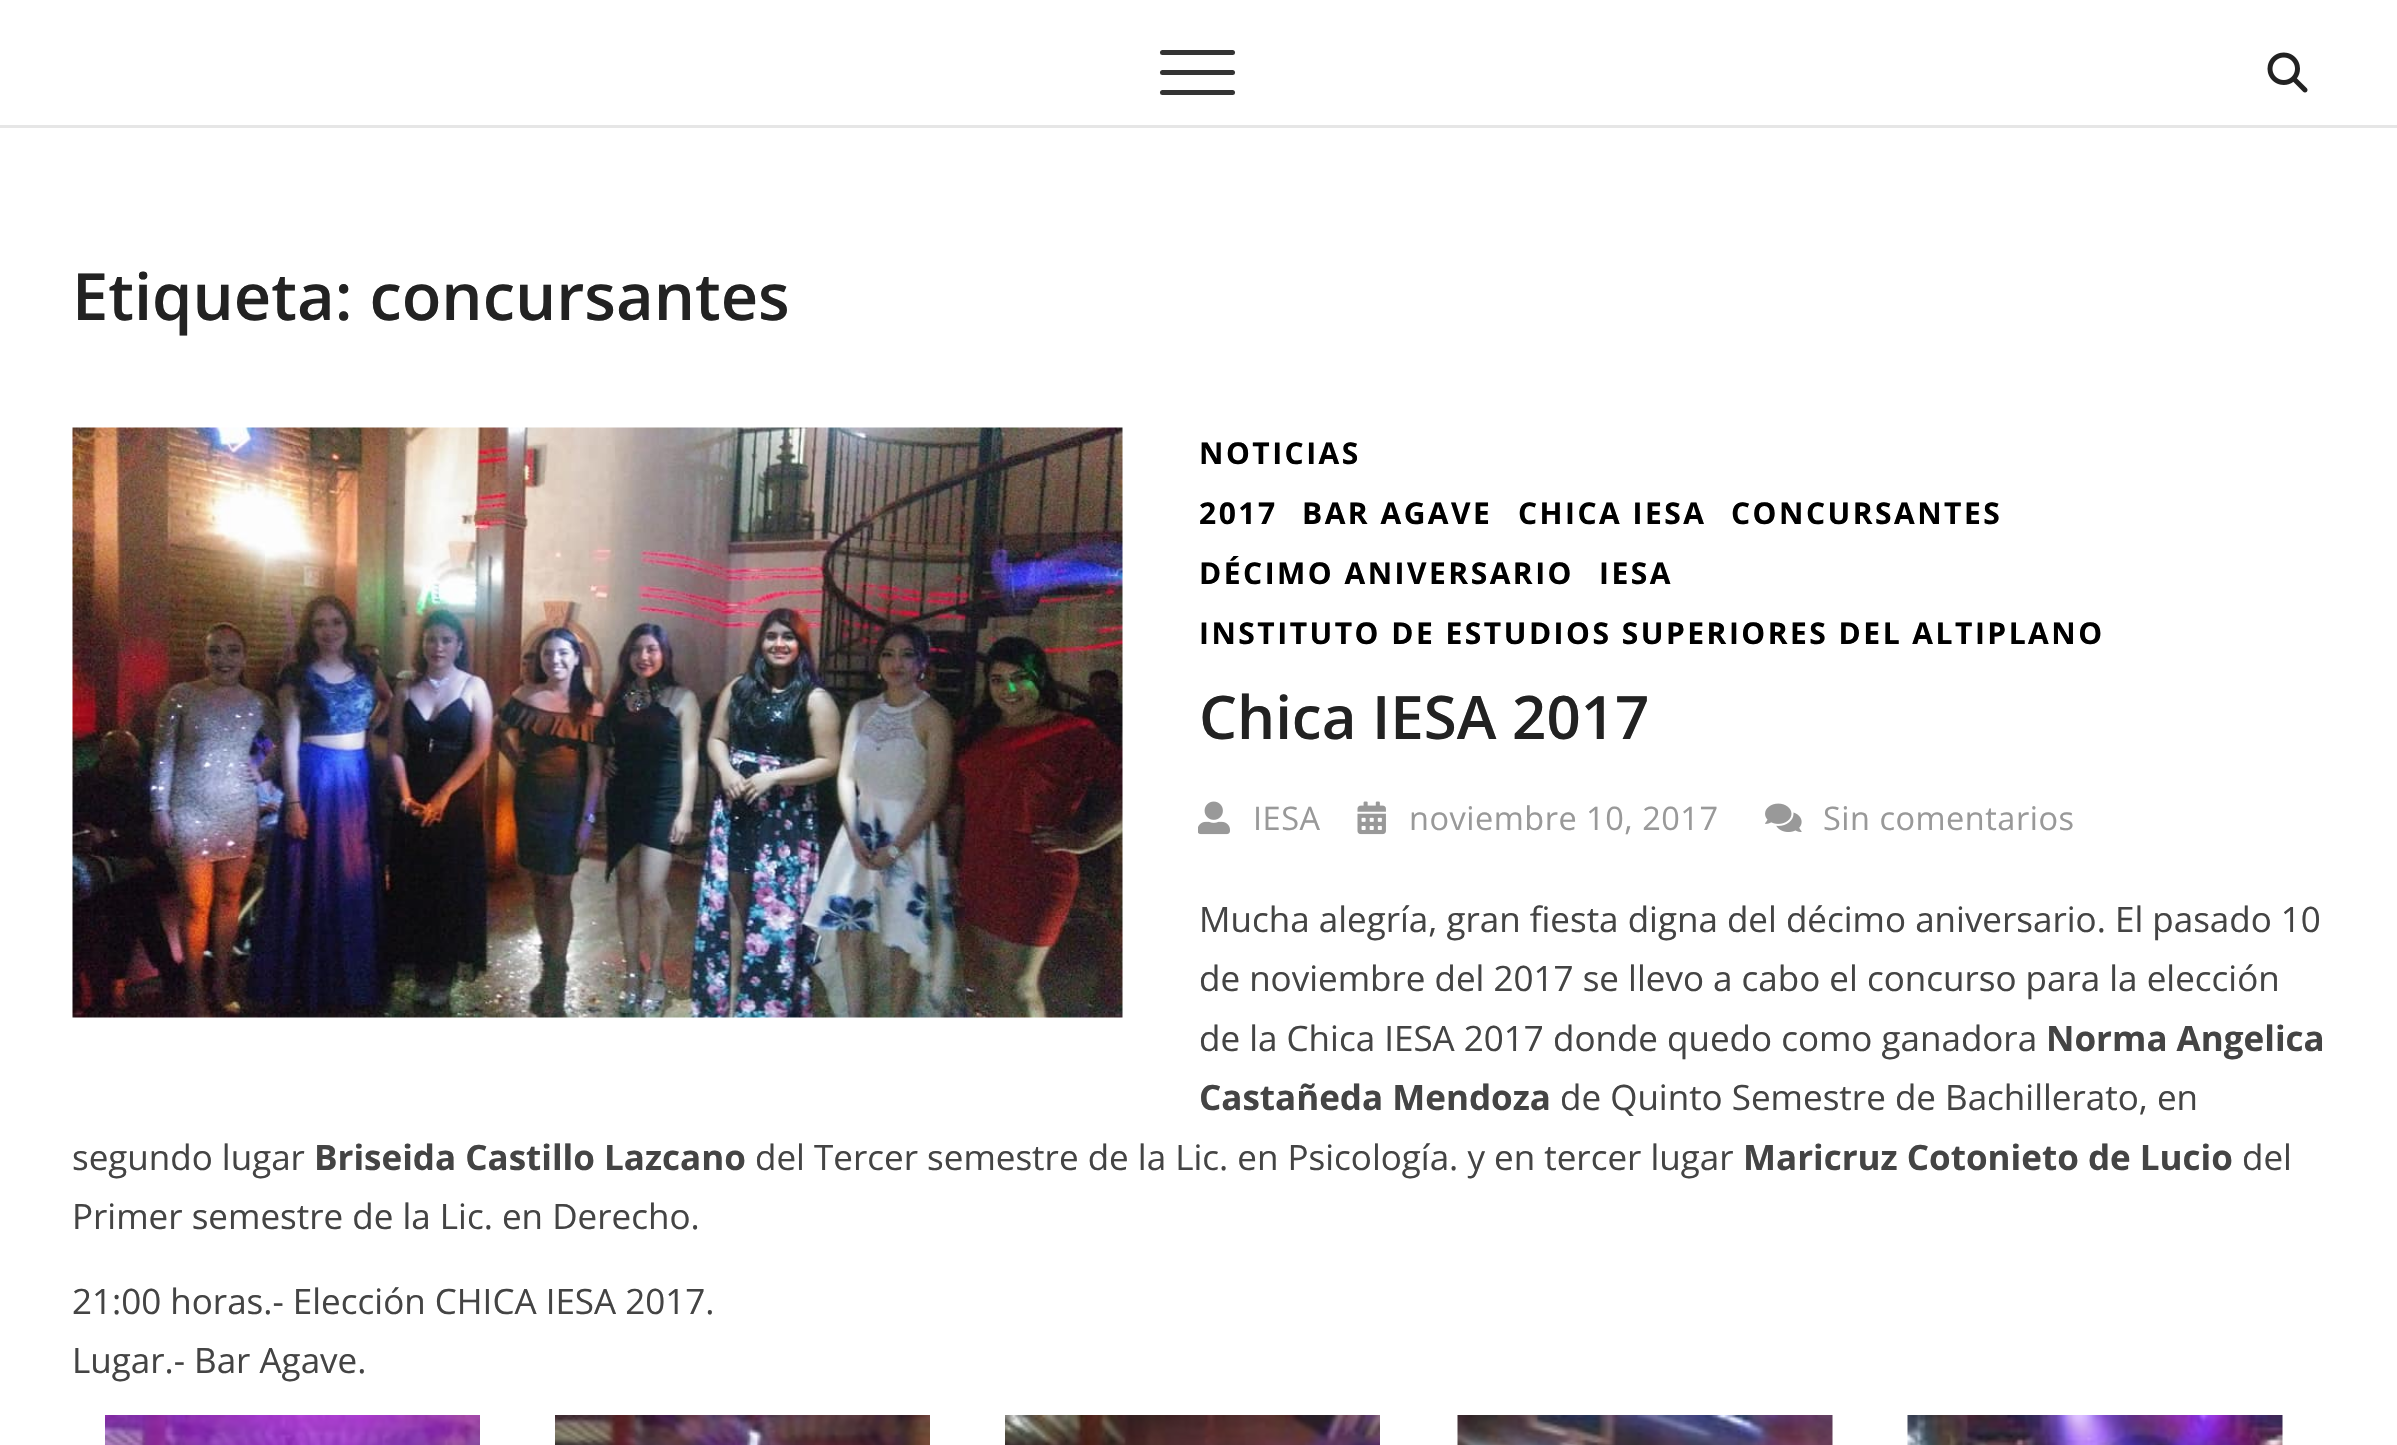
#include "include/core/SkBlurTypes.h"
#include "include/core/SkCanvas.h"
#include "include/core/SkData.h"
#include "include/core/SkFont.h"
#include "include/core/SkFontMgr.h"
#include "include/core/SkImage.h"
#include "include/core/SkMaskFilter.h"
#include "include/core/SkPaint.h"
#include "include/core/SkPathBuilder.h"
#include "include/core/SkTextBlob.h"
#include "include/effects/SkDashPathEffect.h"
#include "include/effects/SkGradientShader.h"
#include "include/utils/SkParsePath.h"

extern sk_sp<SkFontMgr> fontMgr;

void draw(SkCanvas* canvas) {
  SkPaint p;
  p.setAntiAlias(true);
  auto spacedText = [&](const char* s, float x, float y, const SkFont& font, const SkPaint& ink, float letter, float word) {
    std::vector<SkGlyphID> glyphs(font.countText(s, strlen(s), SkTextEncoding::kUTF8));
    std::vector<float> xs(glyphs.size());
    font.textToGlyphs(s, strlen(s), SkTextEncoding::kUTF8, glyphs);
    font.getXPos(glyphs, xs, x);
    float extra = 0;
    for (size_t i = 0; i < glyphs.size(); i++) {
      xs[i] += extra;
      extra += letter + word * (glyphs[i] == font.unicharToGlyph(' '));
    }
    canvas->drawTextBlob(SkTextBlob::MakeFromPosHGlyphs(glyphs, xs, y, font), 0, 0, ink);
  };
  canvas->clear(SK_ColorWHITE);
  p.setColor(SkColorSetRGB(230, 230, 230));
  canvas->drawRect(SkRect::MakeLTRB(0, 125, 2397, 128), p);
  p.setColor(SkColorSetRGB(51, 51, 51));
  canvas->drawRoundRect(SkRect::MakeLTRB(1160, 70, 1235, 75), 2.5f, 2.5f, p);
  canvas->drawRoundRect(SkRect::MakeLTRB(1160, 50, 1235, 55), 2.5f, 2.5f, p);
  canvas->drawRoundRect(SkRect::MakeLTRB(1160, 90, 1235, 95), 2.5f, 2.5f, p);
  canvas->drawImageRect(SkImages::DeferredFromEncodedData(SkData::MakeFromFileName("images/1.png")), SkRect::MakeLTRB(2267, 52, 2308, 93), SkSamplingOptions());
  canvas->drawImageRect(SkImages::DeferredFromEncodedData(SkData::MakeFromFileName("images/2.png")), SkRect::MakeLTRB(72, 427, 1123, 1018), SkSamplingOptions());
  canvas->drawImageRect(SkImages::DeferredFromEncodedData(SkData::MakeFromFileName("images/3.png")), SkRect::MakeLTRB(1198, 801, 1230, 835), SkSamplingOptions());
  canvas->drawImageRect(SkImages::DeferredFromEncodedData(SkData::MakeFromFileName("images/4.png")), SkRect::MakeLTRB(1357, 801, 1386, 835), SkSamplingOptions());
  canvas->drawImageRect(SkImages::DeferredFromEncodedData(SkData::MakeFromFileName("images/5.png")), SkRect::MakeLTRB(1765, 803, 1802, 832), SkSamplingOptions());
  canvas->drawImageRect(SkImages::DeferredFromEncodedData(SkData::MakeFromFileName("images/6.png")), SkRect::MakeLTRB(105, 1415, 480, 1445), SkSamplingOptions());
  canvas->drawImageRect(SkImages::DeferredFromEncodedData(SkData::MakeFromFileName("images/7.png")), SkRect::MakeLTRB(555, 1415, 930, 1445), SkSamplingOptions());
  canvas->drawImageRect(SkImages::DeferredFromEncodedData(SkData::MakeFromFileName("images/8.png")), SkRect::MakeLTRB(1005, 1415, 1380, 1445), SkSamplingOptions());
  canvas->drawImageRect(SkImages::DeferredFromEncodedData(SkData::MakeFromFileName("images/9.png")), SkRect::MakeLTRB(1457, 1415, 1833, 1445), SkSamplingOptions());
  canvas->drawImageRect(SkImages::DeferredFromEncodedData(SkData::MakeFromFileName("images/10.png")), SkRect::MakeLTRB(1907, 1415, 2283, 1445), SkSamplingOptions());
  SkFont font1(fontMgr->matchFamilyStyle("Open Sans", SkFontStyle(600, SkFontStyle::kNormal_Width, SkFontStyle::kUpright_Slant)), 65);
  font1.setSubpixel(true);
  p.setColor(SkColorSetRGB(34, 34, 34));
  canvas->drawString("Etiqueta: concursantes", 72, 320, font1, p);
  SkFont font2(fontMgr->matchFamilyStyle("Open Sans", SkFontStyle::Bold()), 30);
  font2.setSubpixel(true);
  p.setColor(SK_ColorBLACK);
  spacedText("NOTICIAS", 1199, 464, font2, p, 2.5f, 0);
  spacedText("2017", 1199, 524, font2, p, 2.5f, 0);
  spacedText("BAR AGAVE", 1302, 524, font2, p, 2.5f, 0);
  spacedText("CHICA IESA", 1518, 524, font2, p, 2.5f, 0);
  spacedText("CONCURSANTES", 1731, 524, font2, p, 2.5f, 0);
  spacedText("DÉCIMO ANIVERSARIO", 1199, 584, font2, p, 2.5f, 0);
  spacedText("IESA", 1599, 584, font2, p, 2.5f, 0);
  spacedText("INSTITUTO DE ESTUDIOS SUPERIORES DEL ALTIPLANO", 1199, 644, font2, p, 2.5f, 0);
  SkFont font3(fontMgr->matchFamilyStyle("Open Sans", SkFontStyle(600, SkFontStyle::kNormal_Width, SkFontStyle::kUpright_Slant)), 60);
  font3.setSubpixel(true);
  p.setColor(SkColorSetRGB(34, 34, 34));
  canvas->drawString("Chica IESA 2017", 1199, 739, font3, p);
  SkFont font4(fontMgr->matchFamilyStyle("Open Sans", SkFontStyle::Normal()), 32.5f);
  font4.setSubpixel(true);
  p.setColor(SkColorSetRGB(153, 153, 153));
  spacedText("IESA", 1253, 830, font4, p, 0.5f, 0);
  spacedText("noviembre 10, 2017", 1409, 830, font4, p, 0.5f, 0);
  spacedText("Sin comentarios", 1823, 830, font4, p, 0.5f, 0);
  SkFont font5(fontMgr->matchFamilyStyle("Open Sans", SkFontStyle::Normal()), 35);
  font5.setSubpixel(true);
  p.setColor(SkColorSetRGB(68, 68, 68));
  canvas->drawString("Mucha alegría, gran fiesta digna del décimo aniversario. El pasado 10", 1199, 932, font5, p);
  canvas->drawString("de noviembre del 2017 se llevo a cabo el concurso para la elección", 1199, 991, font5, p);
  canvas->drawString("de la Chica IESA 2017 donde quedo como ganadora", 1199, 1051, font5, p);
  SkFont font6(fontMgr->matchFamilyStyle("Open Sans", SkFontStyle::Bold()), 35);
  font6.setSubpixel(true);
  canvas->drawString("Norma Angelica", 2046, 1051, font6, p);
  canvas->drawString("Castañeda Mendoza", 1199, 1110, font6, p);
  canvas->drawString("de Quinto Semestre de Bachillerato, en", 1560, 1110, font5, p);
  canvas->drawString("segundo lugar", 72, 1170, font5, p);
  canvas->drawString("Briseida Castillo Lazcano", 314, 1170, font6, p);
  canvas->drawString("del Tercer semestre de la Lic. en Psicología. y en tercer lugar", 755, 1170, font5, p);
  canvas->drawString("Maricruz Cotonieto de Lucio", 1743, 1170, font6, p);
  canvas->drawString("del", 2242, 1170, font5, p);
  canvas->drawString("Primer semestre de la Lic. en Derecho.", 72, 1229, font5, p);
  canvas->drawString("21:00 horas.- Elección CHICA IESA 2017.", 72, 1314, font5, p);
  canvas->drawString("Lugar.- Bar Agave.", 72, 1373, font5, p);
}
